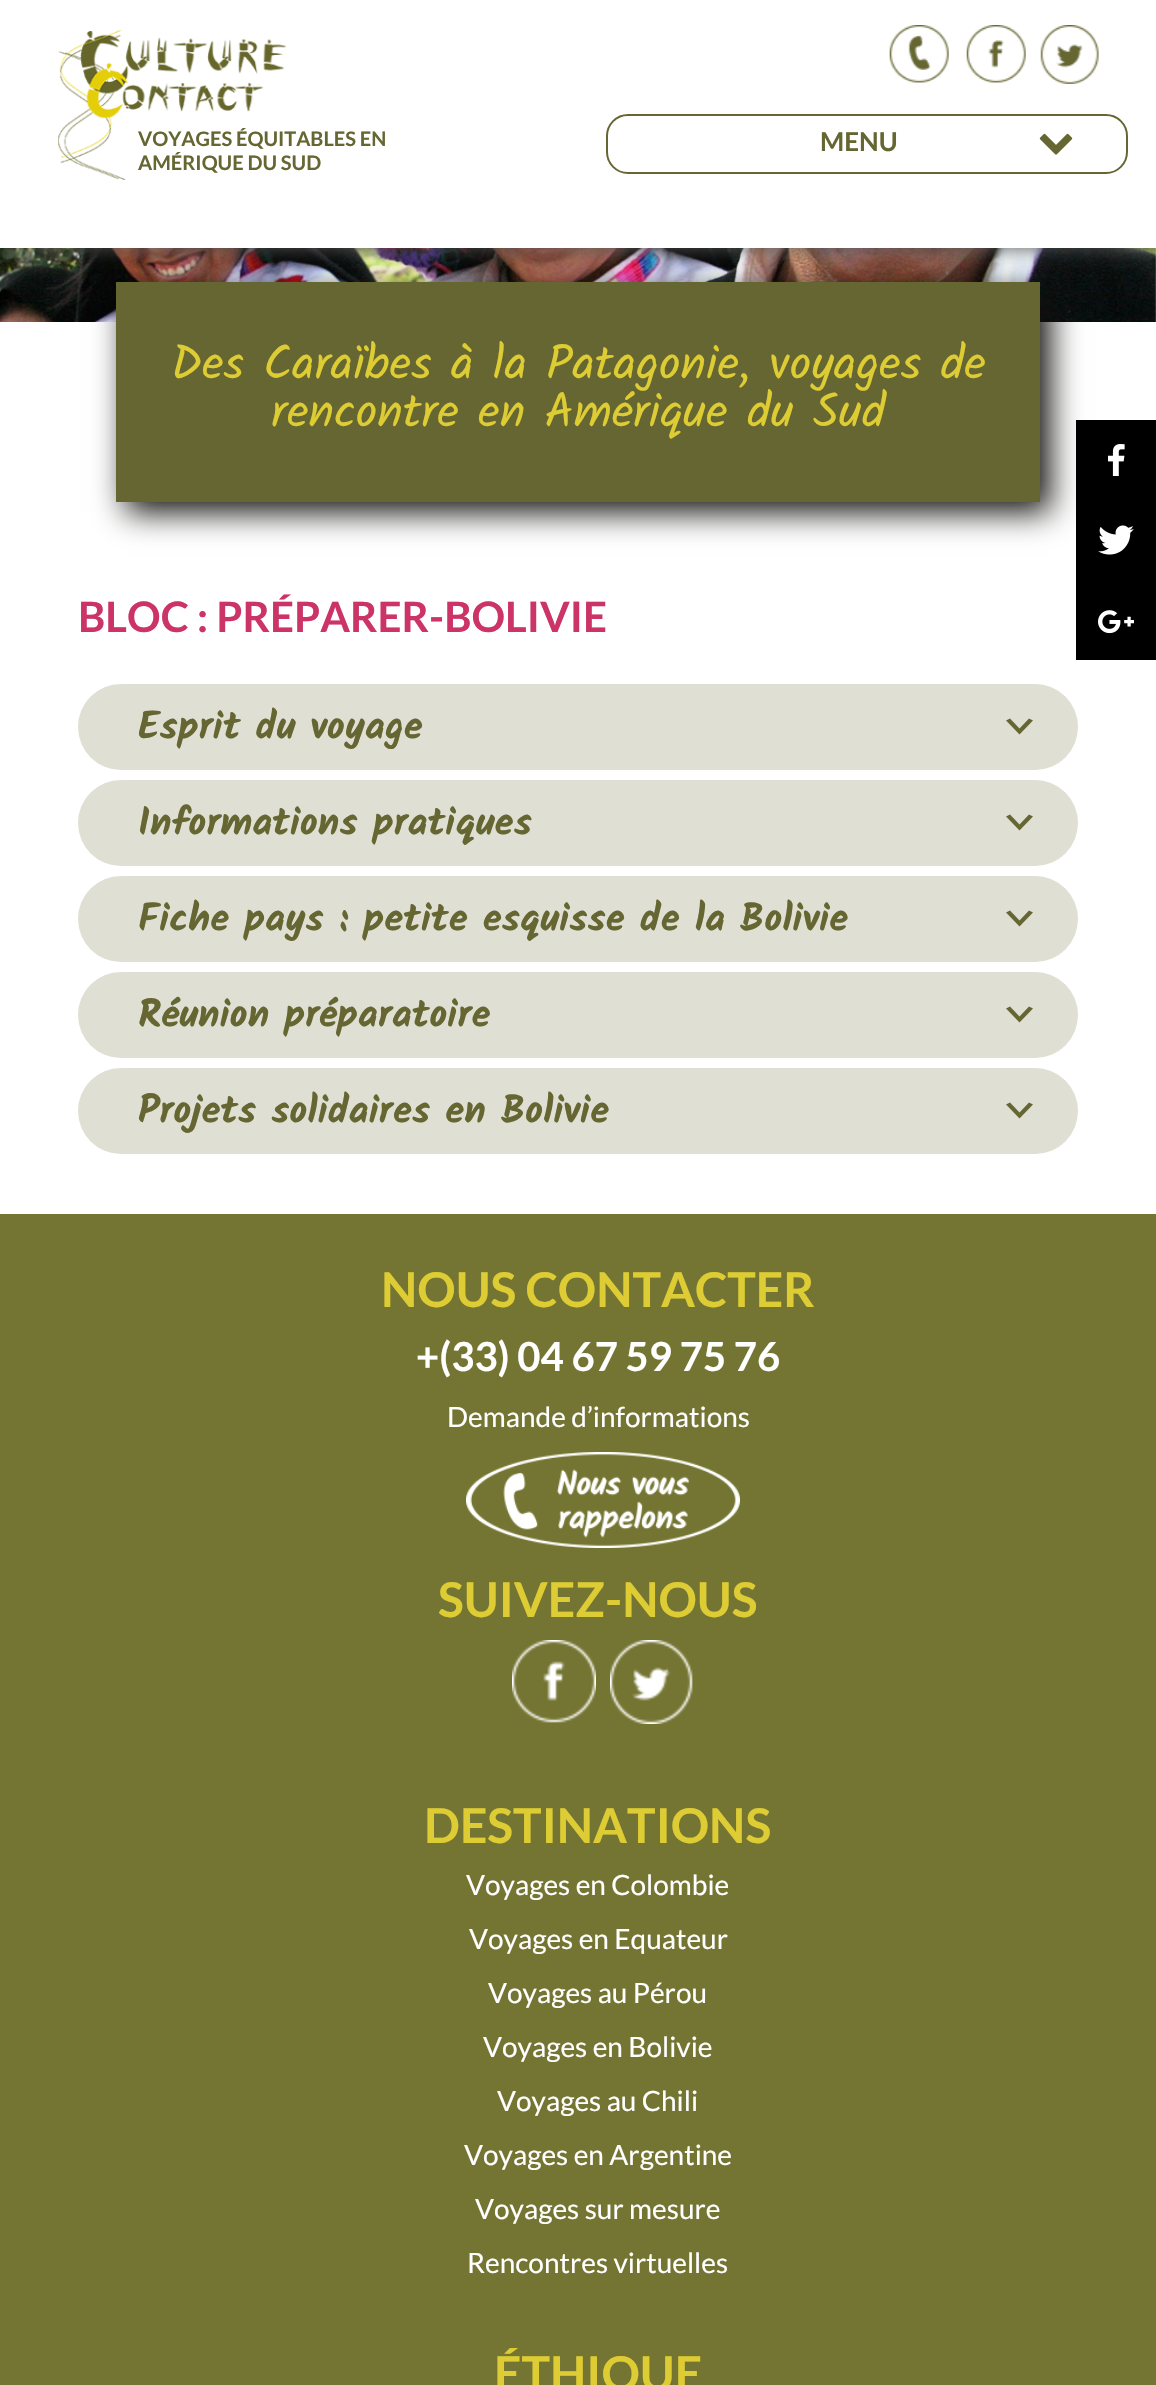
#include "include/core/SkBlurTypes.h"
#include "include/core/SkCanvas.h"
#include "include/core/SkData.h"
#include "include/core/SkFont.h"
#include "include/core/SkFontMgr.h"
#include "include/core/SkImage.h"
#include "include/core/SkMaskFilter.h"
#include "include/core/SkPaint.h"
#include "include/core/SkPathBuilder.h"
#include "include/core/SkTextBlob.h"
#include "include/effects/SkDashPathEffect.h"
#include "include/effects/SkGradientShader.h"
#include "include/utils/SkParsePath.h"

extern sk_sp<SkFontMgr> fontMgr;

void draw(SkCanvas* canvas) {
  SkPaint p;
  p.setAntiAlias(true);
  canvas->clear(SK_ColorWHITE);
  canvas->drawImageRect(SkImages::DeferredFromEncodedData(SkData::MakeFromFileName("images/6.png")), SkRect::MakeLTRB(0, 248, 1156, 322), SkSamplingOptions());
  p.setColor(SkColorSetRGB(85, 85, 85));
  p.setMaskFilter(SkMaskFilter::MakeBlur(kNormal_SkBlurStyle, 10));
  canvas->drawRect(SkRect::MakeLTRB(0, 0, 1156, 248), p);
  p.setMaskFilter(nullptr);
  p.setColor(SkColorSetRGB(15, 14, 11));
  p.setMaskFilter(SkMaskFilter::MakeBlur(kNormal_SkBlurStyle, 15));
  canvas->drawRect(SkRect::MakeLTRB(126, 292, 1050, 512), p);
  p.setMaskFilter(nullptr);
  p.setColor(SK_ColorWHITE);
  canvas->drawRect(SkRect::MakeLTRB(0, 0, 1156, 248), p);
  canvas->drawImageRect(SkImages::DeferredFromEncodedData(SkData::MakeFromFileName("images/1.png")), SkRect::MakeLTRB(889, 25, 949, 83), SkSamplingOptions());
  canvas->drawImageRect(SkImages::DeferredFromEncodedData(SkData::MakeFromFileName("images/2.png")), SkRect::MakeLTRB(966, 25, 1026, 83), SkSamplingOptions());
  canvas->drawImageRect(SkImages::DeferredFromEncodedData(SkData::MakeFromFileName("images/3.png")), SkRect::MakeLTRB(1040, 25, 1099, 84), SkSamplingOptions());
  canvas->drawImageRect(SkImages::DeferredFromEncodedData(SkData::MakeFromFileName("images/4.png")), SkRect::MakeLTRB(58, 30, 286, 180), SkSamplingOptions());
  p.setStyle(SkPaint::kStroke_Style);
  p.setStrokeWidth(2);
  p.setColor(SkColorSetRGB(102, 102, 51));
  canvas->drawRoundRect(SkRect::MakeLTRB(607, 115, 1127, 173), 21, 21, p);
  canvas->drawImageRect(SkImages::DeferredFromEncodedData(SkData::MakeFromFileName("images/5.png")), SkRect::MakeLTRB(1039, 133, 1073, 155), SkSamplingOptions());
  p.setStyle(SkPaint::kFill_Style);
  canvas->drawRect(SkRect::MakeLTRB(116, 282, 1040, 502), p);
  p.setColor(SkColorSetRGB(223, 223, 212));
  canvas->drawRoundRect(SkRect::MakeLTRB(78, 684, 1078, 770), 43, 43, p);
  p.setColor(SkColorSetRGB(102, 102, 51));
  canvas->drawPath(SkPathBuilder().moveTo(1010, 718.5f).lineTo(1019.5f, 728.5f).lineTo(1029, 718.5f).lineTo(1033, 720.5f).lineTo(1019.5f, 734.5f).lineTo(1006, 720.5f).close().detach(), p);
  p.setColor(SkColorSetRGB(223, 223, 212));
  canvas->drawRoundRect(SkRect::MakeLTRB(78, 780, 1078, 866), 43, 43, p);
  p.setColor(SkColorSetRGB(102, 102, 51));
  canvas->drawPath(SkPathBuilder().moveTo(1010, 814.5f).lineTo(1019.5f, 824.5f).lineTo(1029, 814.5f).lineTo(1033, 816.5f).lineTo(1019.5f, 830.5f).lineTo(1006, 816.5f).close().detach(), p);
  p.setColor(SkColorSetRGB(223, 223, 212));
  canvas->drawRoundRect(SkRect::MakeLTRB(78, 876, 1078, 962), 43, 43, p);
  p.setColor(SkColorSetRGB(102, 102, 51));
  canvas->drawPath(SkPathBuilder().moveTo(1010, 910.5f).lineTo(1019.5f, 920.5f).lineTo(1029, 910.5f).lineTo(1033, 912.5f).lineTo(1019.5f, 926.5f).lineTo(1006, 912.5f).close().detach(), p);
  p.setColor(SkColorSetRGB(223, 223, 212));
  canvas->drawRoundRect(SkRect::MakeLTRB(78, 972, 1078, 1058), 43, 43, p);
  p.setColor(SkColorSetRGB(102, 102, 51));
  canvas->drawPath(SkPathBuilder().moveTo(1010, 1006.5f).lineTo(1019.5f, 1016.5f).lineTo(1029, 1006.5f).lineTo(1033, 1008.5f).lineTo(1019.5f, 1022.5f).lineTo(1006, 1008.5f).close().detach(), p);
  p.setColor(SkColorSetRGB(223, 223, 212));
  canvas->drawRoundRect(SkRect::MakeLTRB(78, 1068, 1078, 1154), 43, 43, p);
  p.setColor(SkColorSetRGB(102, 102, 51));
  canvas->drawPath(SkPathBuilder().moveTo(1010, 1102.5f).lineTo(1019.5f, 1112.5f).lineTo(1029, 1102.5f).lineTo(1033, 1104.5f).lineTo(1019.5f, 1118.5f).lineTo(1006, 1104.5f).close().detach(), p);
  p.setColor(SkColorSetRGB(117, 117, 51));
  canvas->drawRect(SkRect::MakeLTRB(0, 1214, 1156, 2385), p);
  canvas->drawImageRect(SkImages::DeferredFromEncodedData(SkData::MakeFromFileName("images/7.png")), SkRect::MakeLTRB(466, 1452, 740, 1548), SkSamplingOptions());
  canvas->drawImageRect(SkImages::DeferredFromEncodedData(SkData::MakeFromFileName("images/8.png")), SkRect::MakeLTRB(512, 1640, 596, 1723), SkSamplingOptions());
  canvas->drawImageRect(SkImages::DeferredFromEncodedData(SkData::MakeFromFileName("images/9.png")), SkRect::MakeLTRB(610, 1640, 693, 1724), SkSamplingOptions());
  p.setColor(SK_ColorBLACK);
  canvas->drawRect(SkRect::MakeLTRB(1076, 420, 1156, 660), p);
  canvas->drawImageRect(SkImages::DeferredFromEncodedData(SkData::MakeFromFileName("images/10.png")), SkRect::MakeLTRB(1108, 444, 1125, 476), SkSamplingOptions());
  canvas->drawImageRect(SkImages::DeferredFromEncodedData(SkData::MakeFromFileName("images/11.png")), SkRect::MakeLTRB(1098, 525, 1134, 555), SkSamplingOptions());
  canvas->drawImageRect(SkImages::DeferredFromEncodedData(SkData::MakeFromFileName("images/12.png")), SkRect::MakeLTRB(1098, 610, 1134, 634), SkSamplingOptions());
  SkFont font1(fontMgr->matchFamilyStyle("Lato", SkFontStyle::Bold()), 20);
  font1.setSubpixel(true);
  p.setColor(SkColorSetRGB(102, 102, 51));
  canvas->drawString("VOYAGES ÉQUITABLES EN", 138, 146, font1, p);
  canvas->drawString("AMÉRIQUE DU SUD", 138, 170, font1, p);
  SkFont font2(fontMgr->matchFamilyStyle("Lato", SkFontStyle::Bold()), 26);
  font2.setSubpixel(true);
  canvas->drawString("MENU", 820, 151, font2, p);
  SkFont font3(fontMgr->matchFamilyStyle("Kalam", SkFontStyle::Normal()), 48);
  font3.setSubpixel(true);
  p.setColor(SkColorSetRGB(221, 204, 51));
  canvas->drawString("Des Caraïbes à la Patagonie, voyages de", 171, 379, font3, p);
  canvas->drawString("rencontre en Amérique du Sud", 271, 427, font3, p);
  SkFont font4(fontMgr->matchFamilyStyle("Lato", SkFontStyle::Bold()), 42);
  font4.setSubpixel(true);
  p.setColor(SkColorSetRGB(204, 51, 102));
  canvas->drawString("BLOC : PRÉPARER-BOLIVIE", 78, 632, font4, p);
  SkFont font5(fontMgr->matchFamilyStyle("Kalam", SkFontStyle::Bold()), 39);
  font5.setSubpixel(true);
  p.setColor(SkColorSetRGB(102, 102, 51));
  canvas->drawString("Esprit du voyage", 138, 739, font5, p);
  canvas->drawString("Informations pratiques", 138, 835, font5, p);
  canvas->drawString("Fiche pays : petite esquisse de la Bolivie", 138, 931, font5, p);
  canvas->drawString("Réunion préparatoire", 138, 1027, font5, p);
  canvas->drawString("Projets solidaires en Bolivie", 138, 1123, font5, p);
  SkFont font6(fontMgr->matchFamilyStyle("Lato", SkFontStyle::Bold()), 48);
  font6.setSubpixel(true);
  p.setColor(SkColorSetRGB(221, 204, 51));
  canvas->drawString("NOUS CONTACTER", 381, 1307, font6, p);
  SkFont font7(fontMgr->matchFamilyStyle("Lato", SkFontStyle::Bold()), 40);
  font7.setSubpixel(true);
  p.setColor(SK_ColorWHITE);
  canvas->drawString("+(33) 04 67 59 75 76", 416, 1371, font7, p);
  SkFont font8(fontMgr->matchFamilyStyle("Lato", SkFontStyle::Normal()), 28);
  font8.setSubpixel(true);
  canvas->drawString("Demande d’informations", 447, 1427, font8, p);
  p.setColor(SkColorSetRGB(221, 204, 51));
  canvas->drawString("SUIVEZ-NOUS", 438, 1617, font6, p);
  canvas->drawString("DESTINATIONS", 424, 1843, font6, p);
  p.setColor(SK_ColorWHITE);
  canvas->drawString("Voyages en Colombie", 466, 1895, font8, p);
  canvas->drawString("Voyages en Equateur", 469, 1949, font8, p);
  canvas->drawString("Voyages au Pérou", 488, 2003, font8, p);
  canvas->drawString("Voyages en Bolivie", 483, 2057, font8, p);
  canvas->drawString("Voyages au Chili", 497, 2111, font8, p);
  canvas->drawString("Voyages en Argentine", 464, 2165, font8, p);
  canvas->drawString("Voyages sur mesure", 475, 2219, font8, p);
  canvas->drawString("Rencontres virtuelles", 467, 2273, font8, p);
  p.setColor(SkColorSetRGB(221, 204, 51));
  canvas->drawString("ÉTHIQUE", 494, 2391, font6, p);
}
